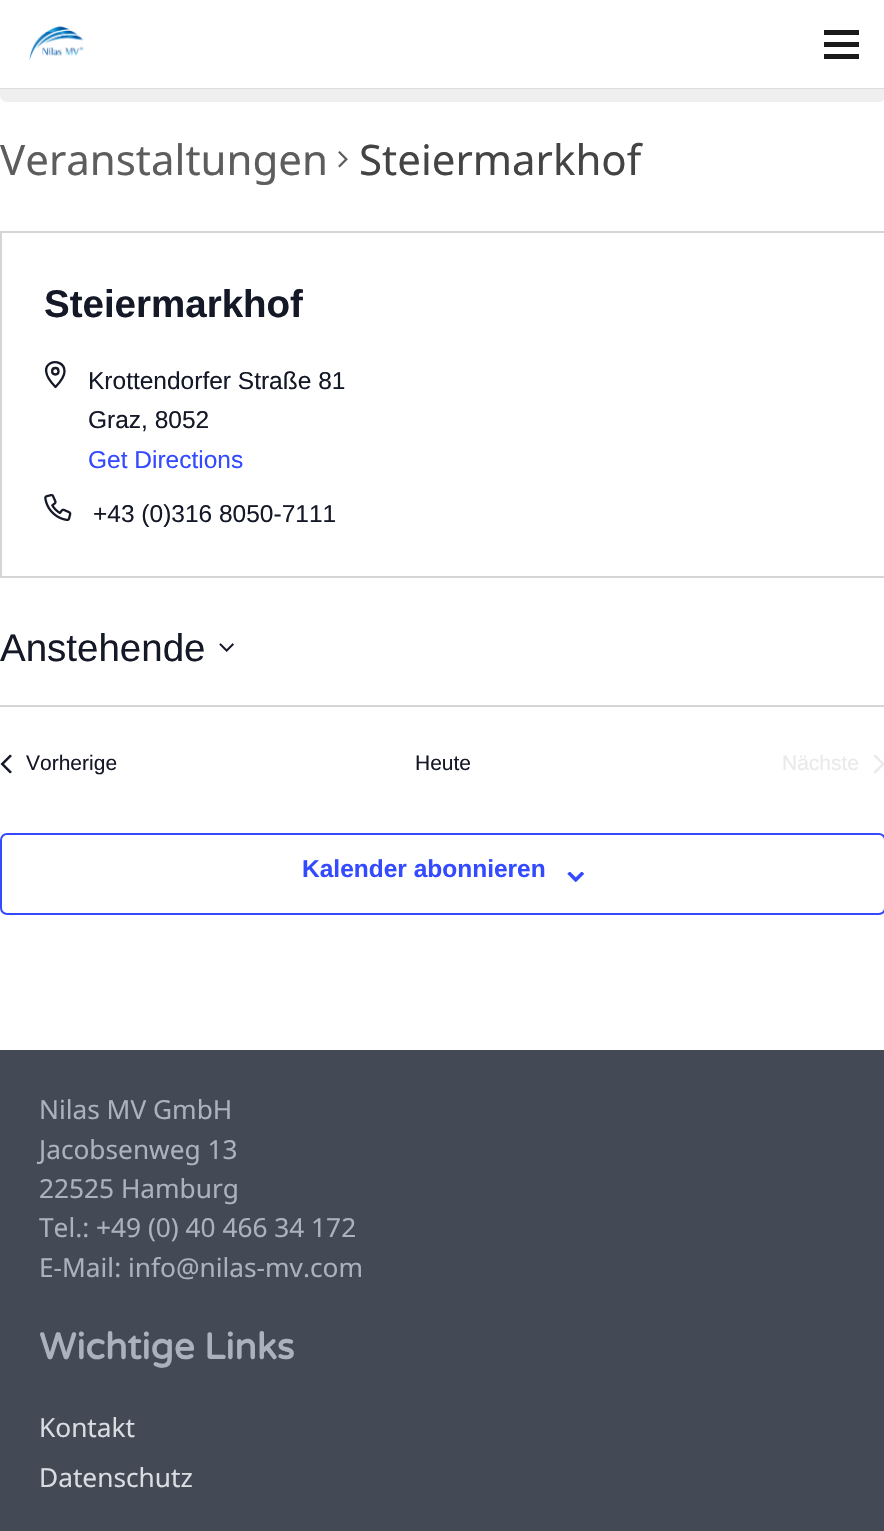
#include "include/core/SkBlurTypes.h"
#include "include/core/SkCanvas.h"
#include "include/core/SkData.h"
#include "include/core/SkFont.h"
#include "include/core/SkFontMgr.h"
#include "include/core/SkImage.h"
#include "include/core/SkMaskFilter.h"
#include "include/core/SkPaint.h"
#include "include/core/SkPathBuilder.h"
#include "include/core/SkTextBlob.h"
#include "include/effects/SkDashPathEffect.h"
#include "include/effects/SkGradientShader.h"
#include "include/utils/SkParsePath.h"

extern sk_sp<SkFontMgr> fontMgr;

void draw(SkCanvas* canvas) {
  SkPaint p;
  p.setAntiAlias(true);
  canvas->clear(SK_ColorWHITE);
  p.setColor(SkColorSetRGB(239, 239, 240));
  canvas->drawRoundRect(SkRect::MakeLTRB(0, 18, 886, 102), 7, 7, p);
  p.setColor(SkColorSetRGB(220, 220, 221));
  canvas->drawPath(SkPathBuilder().moveTo(0, 88).lineTo(0, 89).lineTo(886, 89).lineTo(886, 2).lineTo(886, 88).close().detach(), p);
  p.setColor(SK_ColorWHITE);
  canvas->drawRect(SkRect::MakeLTRB(0, 18, 884, 88), p);
  canvas->drawImageRect(SkImages::DeferredFromEncodedData(SkData::MakeFromFileName("images/1.png")), SkRect::MakeLTRB(29, 26, 84, 61), SkSamplingOptions());
  p.setColor(SkColorSetRGB(26, 26, 26));
  canvas->drawRect(SkRect::MakeLTRB(824, 42, 859, 47), p);
  canvas->drawRect(SkRect::MakeLTRB(824, 30, 859, 35), p);
  canvas->drawRect(SkRect::MakeLTRB(824, 54, 859, 59), p);
  canvas->drawImageRect(SkImages::DeferredFromEncodedData(SkData::MakeFromFileName("images/2.png")), SkRect::MakeLTRB(338, 151, 348, 168), SkSamplingOptions());
  p.setStyle(SkPaint::kStroke_Style);
  p.setStrokeWidth(2);
  p.setColor(SkColorSetRGB(213, 213, 213));
  canvas->drawRect(SkRect::MakeLTRB(1, 232, 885, 577), p);
  p.setStrokeWidth(2.3f);
  p.setStrokeCap(SkPaint::kRound_Cap);
  p.setStrokeJoin(SkPaint::kRound_Join);
  p.setColor(SkColorSetRGB(20, 24, 39));
  canvas->drawPath(SkPathBuilder().moveTo(64.5f, 371.5f).cubicTo(64.5f, 377.5f, 55.5f, 387, 55.5f, 387).cubicTo(30, 361.5f, 64.5f, 354.5f, 64.5f, 371.5f).close().moveTo(55.5f, 374.5f).cubicTo(59.5f, 374.5f, 59.5f, 368, 55.5f, 368).cubicTo(51, 368, 51, 374.5f, 55.5f, 374.5f).close().detach(), p);
  canvas->drawImageRect(SkImages::DeferredFromEncodedData(SkData::MakeFromFileName("images/3.png")), SkRect::MakeLTRB(44, 494, 72, 522), SkSamplingOptions());
  canvas->drawImageRect(SkImages::DeferredFromEncodedData(SkData::MakeFromFileName("images/4.png")), SkRect::MakeLTRB(219, 643, 234, 652), SkSamplingOptions());
  p.setStyle(SkPaint::kFill_Style);
  p.setColor(SkColorSetRGB(213, 213, 213));
  canvas->drawRect(SkRect::MakeLTRB(0, 705, 884, 707), p);
  p.setColor(SkColorSetRGB(20, 24, 39));
  canvas->drawPath(SkPathBuilder().moveTo(12, 772).lineTo(10, 773.5f).lineTo(0.5f, 764).lineTo(10, 754.5f).lineTo(12, 756).lineTo(4, 764).close().detach(), p);
  p.setColor(SkColorSetRGB(234, 234, 234));
  canvas->drawPath(SkPathBuilder().moveTo(873.5f, 756).lineTo(875.5f, 754.5f).lineTo(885, 764).lineTo(875.5f, 773.5f).lineTo(873.5f, 772).lineTo(881.5f, 764).close().detach(), p);
  p.setStyle(SkPaint::kStroke_Style);
  p.setStrokeWidth(2);
  p.setStrokeCap(SkPaint::kButt_Cap);
  p.setStrokeJoin(SkPaint::kMiter_Join);
  p.setColor(SkColorSetRGB(51, 74, 255));
  canvas->drawRoundRect(SkRect::MakeLTRB(1, 834, 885, 914), 6, 6, p);
  canvas->drawImageRect(SkImages::DeferredFromEncodedData(SkData::MakeFromFileName("images/5.png")), SkRect::MakeLTRB(567, 872, 585, 882), SkSamplingOptions());
  p.setStyle(SkPaint::kFill_Style);
  p.setColor(SkColorSetRGB(67, 73, 85));
  canvas->drawRect(SkRect::MakeLTRB(0, 1050, 884, 1531), p);
  SkFont font1(fontMgr->matchFamilyStyle("Noto Sans", SkFontStyle::Normal()), 42);
  font1.setSubpixel(true);
  p.setColor(SkColorSetRGB(93, 93, 93));
  canvas->drawString("Veranstaltungen", 0, 175, font1, p);
  p.setColor(SkColorSetRGB(68, 68, 68));
  canvas->drawString("Steiermarkhof", 359, 175, font1, p);
  SkFont font2(fontMgr->matchFamilyStyle("Liberation Sans", SkFontStyle::Bold()), 38.5f);
  font2.setSubpixel(true);
  p.setColor(SkColorSetRGB(20, 24, 39));
  canvas->drawString("Steiermarkhof", 44, 317, font2, p);
  SkFont font3(fontMgr->matchFamilyStyle("Liberation Sans", SkFontStyle::Normal()), 24.5f);
  font3.setSubpixel(true);
  canvas->drawString("Krottendorfer Straße 81", 88, 389, font3, p);
  canvas->drawString("Graz, 8052", 88, 428, font3, p);
  p.setColor(SkColorSetRGB(51, 74, 255));
  canvas->drawString("Get Directions", 88, 468, font3, p);
  p.setColor(SkColorSetRGB(20, 24, 39));
  canvas->drawString("+43 (0)316 8050-7111", 93, 522, font3, p);
  SkFont font4(fontMgr->matchFamilyStyle("Liberation Sans", SkFontStyle::Normal()), 38.5f);
  font4.setSubpixel(true);
  canvas->drawString("Anstehende", 0, 661, font4, p);
  SkFont font5(fontMgr->matchFamilyStyle("Liberation Sans", SkFontStyle::Normal()), 21);
  font5.setSubpixel(true);
  canvas->drawString("Vorherige", 26, 770, font5, p);
  canvas->drawString("Heute", 415, 770, font5, p);
  p.setColor(SkColorSetRGB(234, 234, 234));
  canvas->drawString("Nächste", 782, 770, font5, p);
  SkFont font6(fontMgr->matchFamilyStyle("Liberation Sans", SkFontStyle::Bold()), 24.5f);
  font6.setSubpixel(true);
  p.setColor(SkColorSetRGB(51, 74, 255));
  canvas->drawString("Kalender abonnieren", 302, 877, font6, p);
  SkFont font7(fontMgr->matchFamilyStyle("Noto Sans", SkFontStyle::Normal()), 26.25f);
  font7.setSubpixel(true);
  p.setColor(SkColorSetRGB(170, 178, 189));
  canvas->drawString("Nilas MV GmbH", 39, 1119, font7, p);
  canvas->drawString("Jacobsenweg 13", 39, 1159, font7, p);
  canvas->drawString("22525 Hamburg", 39, 1198, font7, p);
  canvas->drawString("Tel.: +49 (0) 40 466 34 172", 39, 1237, font7, p);
  canvas->drawString("E-Mail: info@nilas-mv.com", 39, 1277, font7, p);
  SkFont font8(fontMgr->matchFamilyStyle("Varela Round", SkFontStyle::Bold()), 36.75f);
  font8.setSubpixel(true);
  canvas->drawString("Wichtige Links", 39, 1359, font8, p);
  p.setColor(SkColorSetRGB(215, 221, 224));
  canvas->drawString("Kontakt", 39, 1437, font7, p);
  canvas->drawString("Datenschutz", 39, 1487, font7, p);
}
